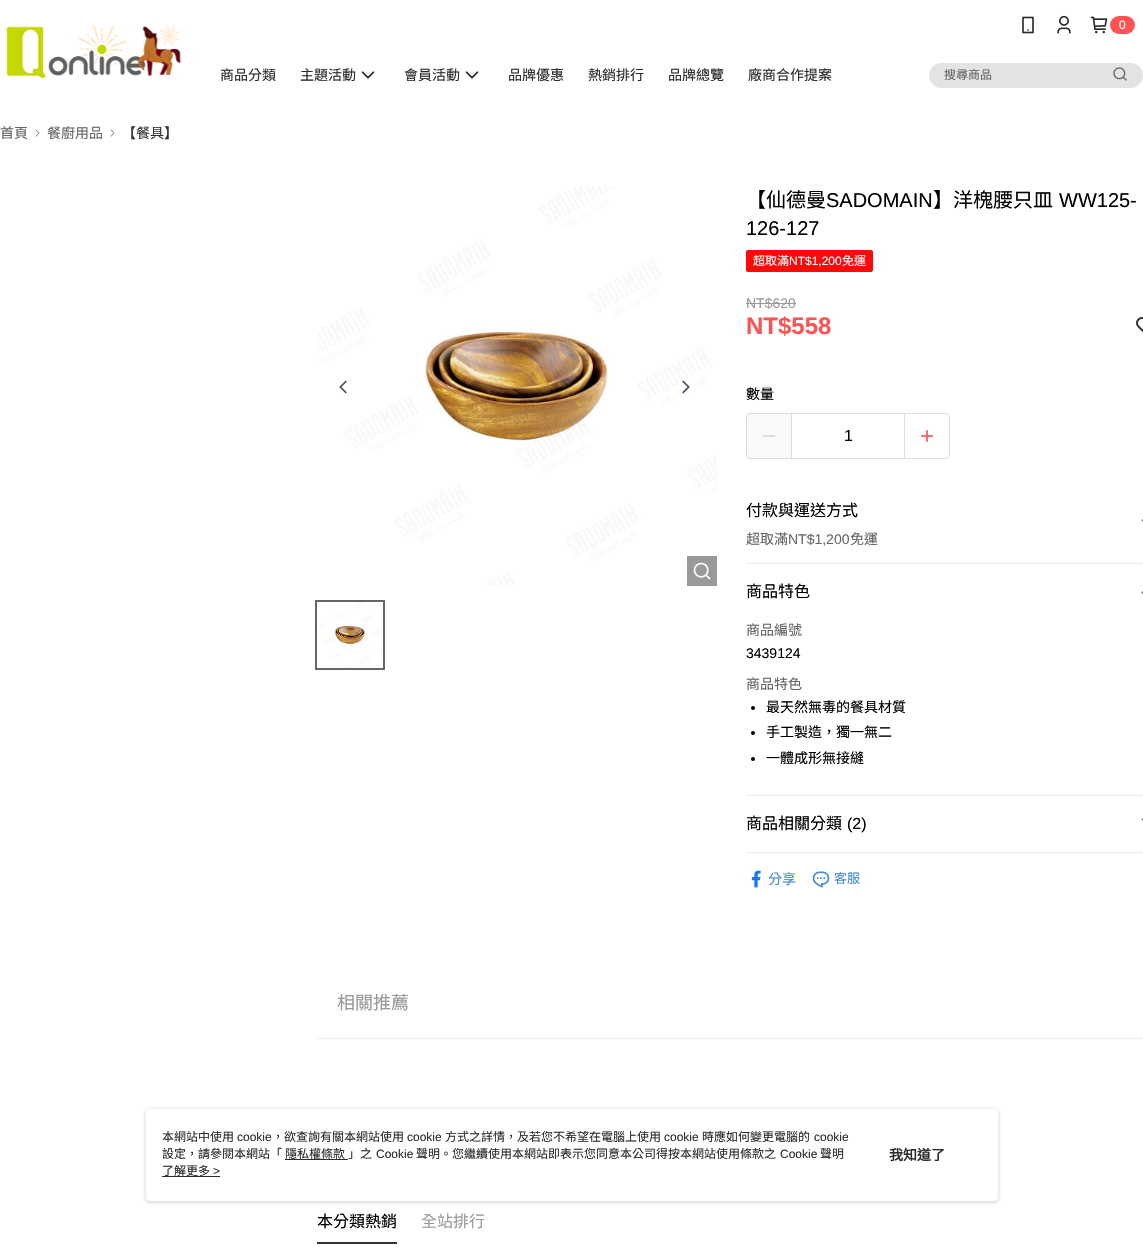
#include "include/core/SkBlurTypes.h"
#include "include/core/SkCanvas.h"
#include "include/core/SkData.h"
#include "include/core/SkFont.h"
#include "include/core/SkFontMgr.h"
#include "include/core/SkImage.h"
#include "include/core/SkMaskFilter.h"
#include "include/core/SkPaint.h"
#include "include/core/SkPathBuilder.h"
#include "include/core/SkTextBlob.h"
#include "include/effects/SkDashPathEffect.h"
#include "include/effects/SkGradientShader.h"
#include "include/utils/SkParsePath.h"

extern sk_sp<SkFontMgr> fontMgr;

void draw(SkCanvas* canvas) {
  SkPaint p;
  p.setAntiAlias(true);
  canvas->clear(SK_ColorWHITE);
  canvas->drawImageRect(SkImages::DeferredFromEncodedData(SkData::MakeFromFileName("images/1.png")), SkRect::MakeLTRB(6, 24, 181, 79), SkSamplingOptions());
  canvas->drawImageRect(SkImages::DeferredFromEncodedData(SkData::MakeFromFileName("images/2.png")), SkRect::MakeLTRB(1022, 16, 1034, 34), SkSamplingOptions());
  canvas->drawImageRect(SkImages::DeferredFromEncodedData(SkData::MakeFromFileName("images/3.png")), SkRect::MakeLTRB(1057, 15, 1071, 34), SkSamplingOptions());
  canvas->drawImageRect(SkImages::DeferredFromEncodedData(SkData::MakeFromFileName("images/4.png")), SkRect::MakeLTRB(1090, 16, 1108, 34), SkSamplingOptions());
  p.setColor(SkColorSetRGB(255, 83, 83));
  canvas->drawRoundRect(SkRect::MakeLTRB(1110, 16, 1135, 34), 9, 9, p);
  canvas->drawImageRect(SkImages::DeferredFromEncodedData(SkData::MakeFromFileName("images/5.png")), SkRect::MakeLTRB(361, 71, 375, 79), SkSamplingOptions());
  canvas->drawImageRect(SkImages::DeferredFromEncodedData(SkData::MakeFromFileName("images/5.png")), SkRect::MakeLTRB(465, 71, 479, 79), SkSamplingOptions());
  p.setColor(SkColorSetRGB(228, 226, 226));
  canvas->drawRoundRect(SkRect::MakeLTRB(929, 63, 1143, 88), 12.5f, 12.5f, p);
  canvas->drawImageRect(SkImages::DeferredFromEncodedData(SkData::MakeFromFileName("images/6.png")), SkRect::MakeLTRB(1113, 67, 1127, 81), SkSamplingOptions());
  canvas->drawImageRect(SkImages::DeferredFromEncodedData(SkData::MakeFromFileName("images/7.png")), SkRect::MakeLTRB(35, 129, 40, 137), SkSamplingOptions());
  canvas->drawImageRect(SkImages::DeferredFromEncodedData(SkData::MakeFromFileName("images/7.png")), SkRect::MakeLTRB(110, 129, 115, 137), SkSamplingOptions());
  canvas->drawImageRect(SkImages::DeferredFromEncodedData(SkData::MakeFromFileName("images/8.png")), SkRect::MakeLTRB(317, 186, 717, 586), SkSamplingOptions());
  p.setColor(SkColorSetRGB(153, 153, 153));
  canvas->drawRect(SkRect::MakeLTRB(687, 556, 717, 586), p);
  canvas->drawImageRect(SkImages::DeferredFromEncodedData(SkData::MakeFromFileName("images/9.png")), SkRect::MakeLTRB(693, 562, 711, 580), SkSamplingOptions());
  canvas->drawImageRect(SkImages::DeferredFromEncodedData(SkData::MakeFromFileName("images/10.png")), SkRect::MakeLTRB(339, 380, 347, 394), SkSamplingOptions());
  canvas->drawImageRect(SkImages::DeferredFromEncodedData(SkData::MakeFromFileName("images/11.png")), SkRect::MakeLTRB(682, 380, 690, 394), SkSamplingOptions());
  canvas->drawImageRect(SkImages::DeferredFromEncodedData(SkData::MakeFromFileName("images/12.png")), SkRect::MakeLTRB(317, 602, 383, 668), SkSamplingOptions());
  p.setStyle(SkPaint::kStroke_Style);
  p.setStrokeWidth(2);
  p.setColor(SkColorSetRGB(102, 102, 102));
  canvas->drawRect(SkRect::MakeLTRB(316, 601, 384, 669), p);
  p.setStyle(SkPaint::kFill_Style);
  p.setColor(SkColorSetRGB(252, 9, 9));
  canvas->drawRoundRect(SkRect::MakeLTRB(746.5f, 250.5f, 872.5f, 271.5f), 1.5f, 1.5f, p);
  p.setStyle(SkPaint::kStroke_Style);
  p.setStrokeWidth(1);
  canvas->drawRoundRect(SkRect::MakeLTRB(746.5f, 250.5f, 872.5f, 271.5f), 1.5f, 1.5f, p);
  p.setStyle(SkPaint::kFill_Style);
  p.setColor(SkColorSetRGB(153, 153, 153));
  canvas->drawRect(SkRect::MakeLTRB(746, 303, 796, 304), p);
  canvas->drawImageRect(SkImages::DeferredFromEncodedData(SkData::MakeFromFileName("images/13.png")), SkRect::MakeLTRB(1136, 317, 1143, 333), SkSamplingOptions());
  p.setStyle(SkPaint::kStroke_Style);
  p.setColor(SkColorSetRGB(221, 221, 221));
  canvas->drawRoundRect(SkRect::MakeLTRB(746.5f, 413.5f, 949.5f, 458.5f), 3.5f, 3.5f, p);
  p.setStyle(SkPaint::kFill_Style);
  p.setColor(SkColorSetARGB(102, 241, 241, 241));
  canvas->drawRect(SkRect::MakeLTRB(747, 414, 791, 458), p);
  p.setColor(SkColorSetRGB(221, 221, 221));
  canvas->drawRect(SkRect::MakeLTRB(763, 435, 775, 437), p);
  canvas->drawRect(SkRect::MakeLTRB(904, 414, 905, 458), p);
  canvas->drawRect(SkRect::MakeLTRB(791, 414, 792, 458), p);
  canvas->drawImageRect(SkImages::DeferredFromEncodedData(SkData::MakeFromFileName("images/14.png")), SkRect::MakeLTRB(921, 430, 933, 442), SkSamplingOptions());
  p.setColor(SkColorSetRGB(236, 239, 241));
  canvas->drawRect(SkRect::MakeLTRB(746, 563, 1143, 564), p);
  canvas->drawImageRect(SkImages::DeferredFromEncodedData(SkData::MakeFromFileName("images/15.png")), SkRect::MakeLTRB(1141, 519, 1143, 522), SkSamplingOptions());
  canvas->drawRect(SkRect::MakeLTRB(746, 795, 1143, 796), p);
  canvas->drawImageRect(SkImages::DeferredFromEncodedData(SkData::MakeFromFileName("images/16.png")), SkRect::MakeLTRB(1141, 591, 1143, 594), SkSamplingOptions());
  p.setColor(SK_ColorBLACK);
  canvas->drawCircle(753, 708, 2, p);
  canvas->drawCircle(753, 733, 2, p);
  canvas->drawCircle(753, 759, 2, p);
  p.setColor(SkColorSetRGB(236, 239, 241));
  canvas->drawRect(SkRect::MakeLTRB(746, 852, 1143, 853), p);
  canvas->drawImageRect(SkImages::DeferredFromEncodedData(SkData::MakeFromFileName("images/15.png")), SkRect::MakeLTRB(1141, 818, 1143, 821), SkSamplingOptions());
  canvas->drawImageRect(SkImages::DeferredFromEncodedData(SkData::MakeFromFileName("images/17.png")), SkRect::MakeLTRB(751, 870, 761, 888), SkSamplingOptions());
  canvas->drawImageRect(SkImages::DeferredFromEncodedData(SkData::MakeFromFileName("images/18.png")), SkRect::MakeLTRB(812, 871, 830, 888), SkSamplingOptions());
  p.setColor(SkColorSetRGB(236, 236, 236));
  canvas->drawRect(SkRect::MakeLTRB(317, 1038, 1143, 1039), p);
  p.setColor(SkColorSetRGB(51, 51, 51));
  canvas->drawRect(SkRect::MakeLTRB(317, 1242, 397, 1244), p);
  p.setColor(SkColorSetARGB(128, 151, 151, 151));
  p.setMaskFilter(SkMaskFilter::MakeBlur(kNormal_SkBlurStyle, 2));
  canvas->drawRoundRect(SkRect::MakeLTRB(146, 1110, 998, 1202), 4, 4, p);
  p.setMaskFilter(nullptr);
  p.setColor(SK_ColorWHITE);
  canvas->drawRoundRect(SkRect::MakeLTRB(146, 1109, 998, 1201), 4, 4, p);
  p.setColor(SkColorSetRGB(44, 44, 44));
  canvas->drawRect(SkRect::MakeLTRB(285, 1159, 348, 1160), p);
  canvas->drawRect(SkRect::MakeLTRB(162, 1176, 220, 1177), p);
  SkFont font1(fontMgr->matchFamilyStyle("Liberation Sans", SkFontStyle::Normal()), 12);
  font1.setSubpixel(true);
  p.setColor(SK_ColorWHITE);
  canvas->drawString("0", 1119, 29, font1, p);
  SkFont font2(fontMgr->matchFamilyStyle("Noto Sans CJK TC", SkFontStyle::Normal()), 14);
  font2.setSubpixel(true);
  p.setColor(SkColorSetRGB(44, 44, 44));
  canvas->drawString("商品分類", 220, 80, font2, p);
  canvas->drawString("主題活動", 300, 80, font2, p);
  canvas->drawString("會員活動", 404, 80, font2, p);
  canvas->drawString("品牌優惠", 508, 80, font2, p);
  canvas->drawString("熱銷排行", 588, 80, font2, p);
  canvas->drawString("品牌總覽", 668, 80, font2, p);
  canvas->drawString("廠商合作提案", 748, 80, font2, p);
  SkFont font3(fontMgr->matchFamilyStyle("Noto Sans CJK TC", SkFontStyle::Normal()), 12);
  font3.setSubpixel(true);
  p.setColor(SkColorSetRGB(102, 102, 102));
  canvas->drawString("搜尋商品", 944, 79, font3, p);
  canvas->drawString("首頁", 0, 138, font2, p);
  canvas->drawString("餐廚用品", 47, 138, font2, p);
  p.setColor(SkColorSetRGB(51, 51, 51));
  canvas->drawString("【餐具】", 122, 138, font2, p);
  SkFont font4(fontMgr->matchFamilyStyle("Noto Sans CJK TC", SkFontStyle::Normal()), 20);
  font4.setSubpixel(true);
  p.setColor(SK_ColorBLACK);
  canvas->drawString("【仙德曼", 746, 207, font4, p);
  SkFont font5(fontMgr->matchFamilyStyle("Liberation Sans", SkFontStyle::Normal()), 20);
  font5.setSubpixel(true);
  canvas->drawString("SADOMAIN", 826, 207, font5, p);
  canvas->drawString("】洋槐腰只皿", 933, 207, font4, p);
  canvas->drawString("WW125-", 1059, 207, font5, p);
  canvas->drawString("126-127", 746, 235, font5, p);
  p.setColor(SkColorSetRGB(248, 247, 247));
  canvas->drawString("超取滿", 753, 265, font3, p);
  canvas->drawString("NT$1,200", 789, 265, font1, p);
  canvas->drawString("免運", 842, 265, font3, p);
  SkFont font6(fontMgr->matchFamilyStyle("Liberation Sans", SkFontStyle::Normal()), 14);
  font6.setSubpixel(true);
  p.setColor(SkColorSetRGB(153, 153, 153));
  canvas->drawString("NT$620", 746, 308, font6, p);
  SkFont font7(fontMgr->matchFamilyStyle("Liberation Sans", SkFontStyle::Bold()), 24);
  font7.setSubpixel(true);
  p.setColor(SkColorSetRGB(255, 83, 83));
  canvas->drawString("NT$558", 746, 334, font7, p);
  p.setColor(SK_ColorBLACK);
  canvas->drawString("數量", 746, 399, font2, p);
  SkFont font8(fontMgr->matchFamilyStyle("Liberation Sans", SkFontStyle::Normal()), 16);
  font8.setSubpixel(true);
  canvas->drawString("1", 844, 441, font8, p);
  SkFont font9(fontMgr->matchFamilyStyle("Noto Sans CJK TC", SkFontStyle::Normal()), 16);
  font9.setSubpixel(true);
  canvas->drawString("付款與運送方式", 746, 516, font9, p);
  p.setColor(SkColorSetRGB(102, 102, 102));
  canvas->drawString("超取滿", 746, 544, font2, p);
  canvas->drawString("NT$1,200", 788, 544, font6, p);
  canvas->drawString("免運", 850, 544, font2, p);
  p.setColor(SK_ColorBLACK);
  canvas->drawString("商品特色", 746, 597, font9, p);
  p.setColor(SkColorSetRGB(102, 102, 102));
  canvas->drawString("商品編號", 746, 635, font2, p);
  p.setColor(SK_ColorBLACK);
  canvas->drawString("3439124", 746, 658, font6, p);
  p.setColor(SkColorSetRGB(102, 102, 102));
  canvas->drawString("商品特色", 746, 689, font2, p);
  p.setColor(SK_ColorBLACK);
  canvas->drawString("最天然無毒的餐具材質", 766, 712, font2, p);
  canvas->drawString("手工製造，獨一無二", 766, 737, font2, p);
  canvas->drawString("一體成形無接縫", 766, 763, font2, p);
  canvas->drawString("商品相關分類", 746, 829, font9, p);
  canvas->drawString("(2)", 847, 829, font8, p);
  p.setColor(SkColorSetRGB(66, 139, 202));
  canvas->drawString("分享", 768, 884, font2, p);
  SkFont font10(fontMgr->matchFamilyStyle("Noto Sans CJK TC", SkFontStyle::Normal()), 13);
  font10.setSubpixel(true);
  canvas->drawString("客服", 834, 883, font10, p);
  SkFont font11(fontMgr->matchFamilyStyle("Noto Sans CJK TC", SkFontStyle::Normal()), 18);
  font11.setSubpixel(true);
  p.setColor(SkColorSetRGB(153, 153, 153));
  canvas->drawString("相關推薦", 337, 1009, font11, p);
  p.setColor(SK_ColorBLACK);
  canvas->drawString("本分類熱銷", 317, 1227, font9, p);
  p.setColor(SkColorSetRGB(153, 153, 153));
  canvas->drawString("全站排行", 421, 1227, font9, p);
  p.setColor(SkColorSetRGB(44, 44, 44));
  canvas->drawString("本網站中使用", 162, 1141, font3, p);
  canvas->drawString("cookie", 237, 1141, font1, p);
  canvas->drawString("，欲查詢有關本網站使用", 272, 1141, font3, p);
  canvas->drawString("cookie", 407, 1141, font1, p);
  canvas->drawString("方式之詳情，及若您不希望在電腦上使用", 445, 1141, font3, p);
  canvas->drawString("cookie", 664, 1141, font1, p);
  canvas->drawString("時應如何變更電腦的", 702, 1141, font3, p);
  canvas->drawString("cookie", 814, 1141, font1, p);
  canvas->drawString("設定，請參閱本網站「", 162, 1158, font3, p);
  canvas->drawString("隱私權條款", 285, 1158, font3, p);
  canvas->drawString("」之", 348, 1158, font3, p);
  canvas->drawString("Cookie", 376, 1158, font1, p);
  canvas->drawString("聲明。您繼續使用本網站即表示您同意本公司得按本網站使用條款之", 416, 1158, font3, p);
  canvas->drawString("Cookie", 780, 1158, font1, p);
  canvas->drawString("聲明", 820, 1158, font3, p);
  canvas->drawString("了解更多", 162, 1175, font3, p);
  canvas->drawString(">", 213, 1175, font1, p);
  SkFont font12(fontMgr->matchFamilyStyle("Noto Sans CJK TC", SkFontStyle::Bold()), 14);
  font12.setSubpixel(true);
  canvas->drawString("我知道了", 889, 1160, font12, p);
}
